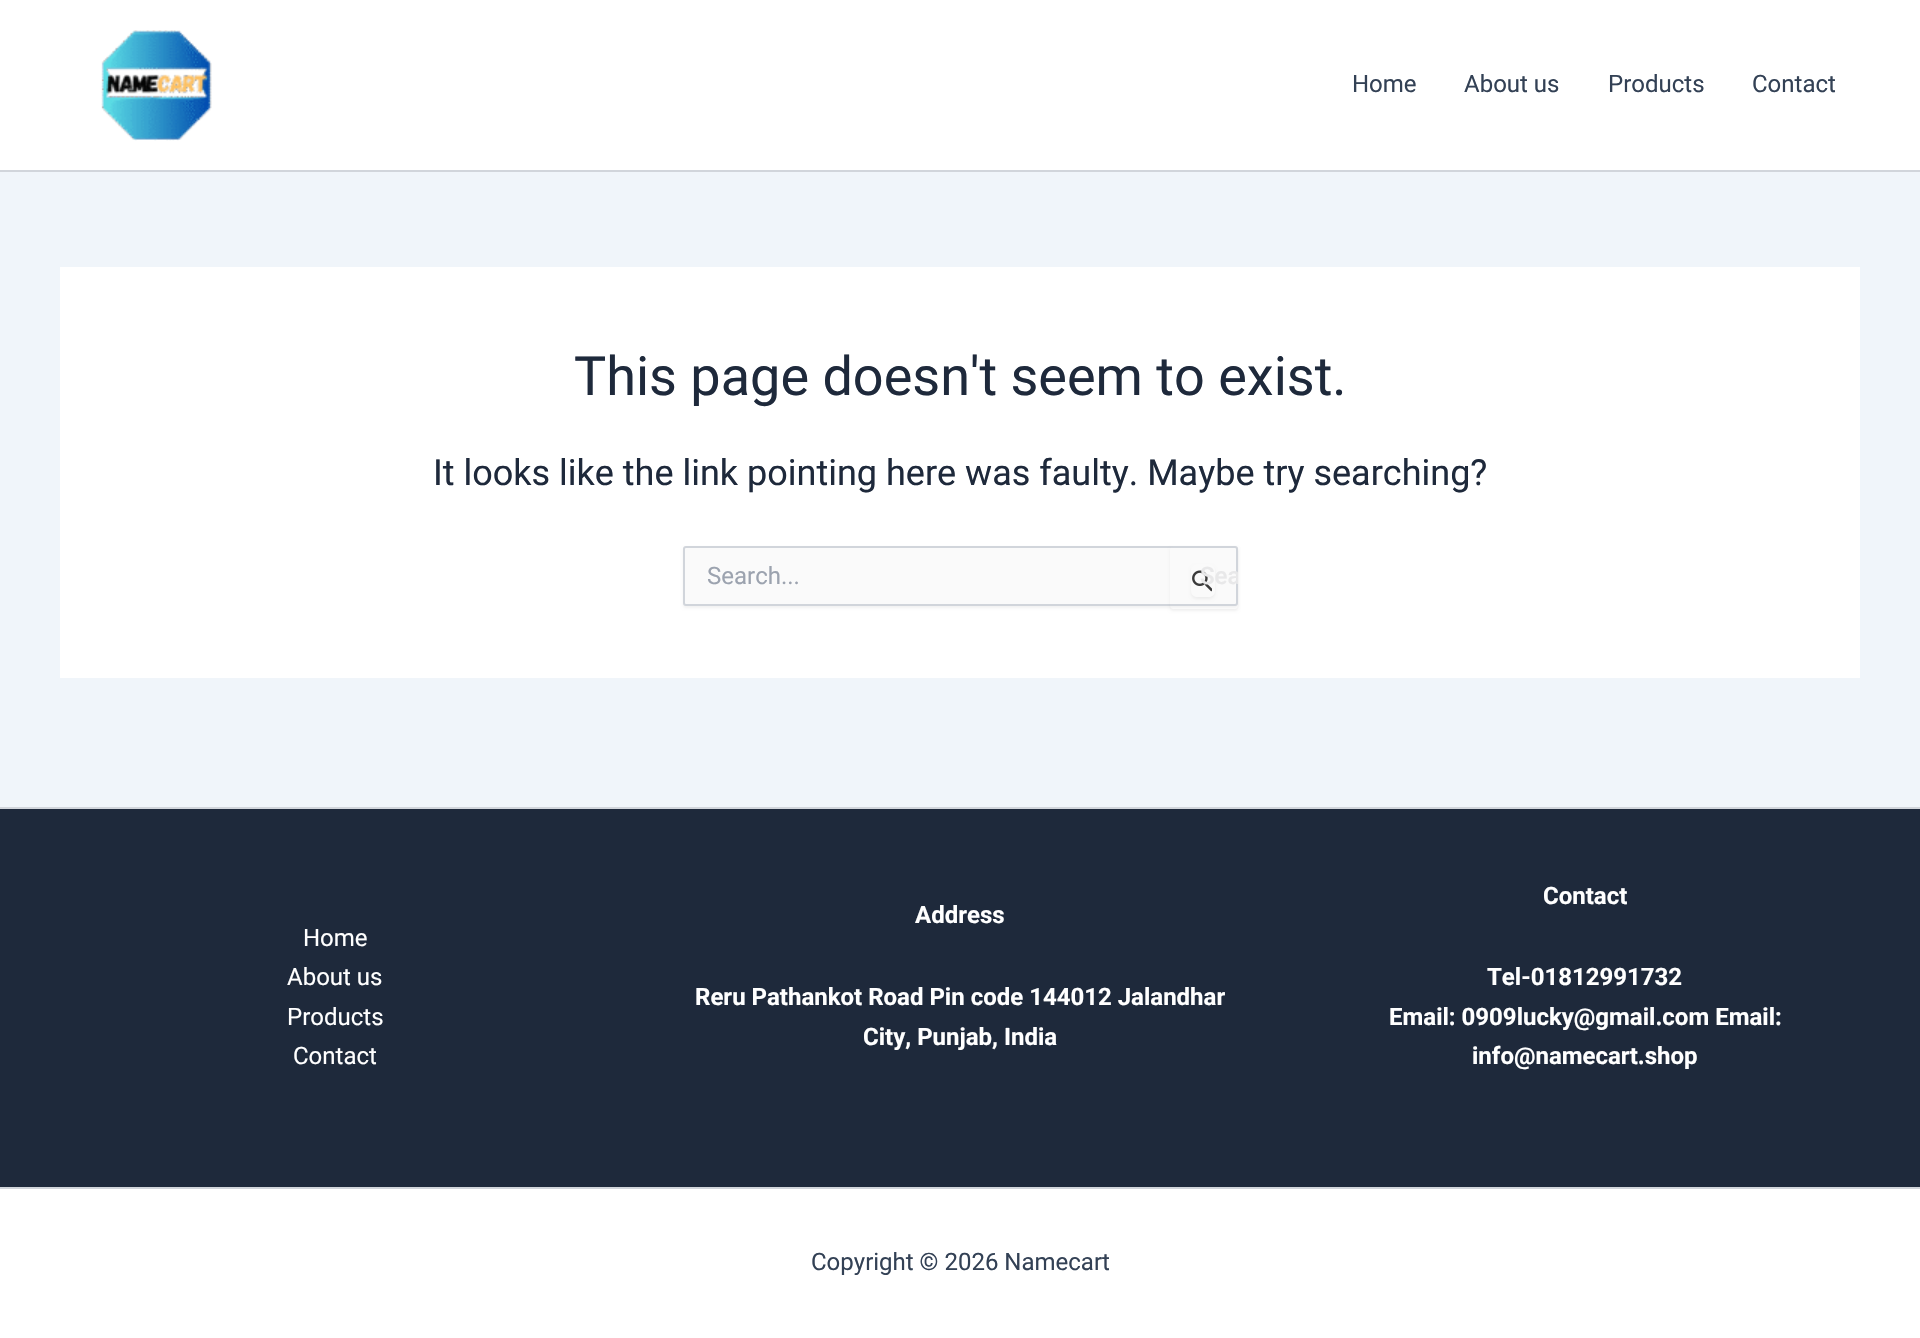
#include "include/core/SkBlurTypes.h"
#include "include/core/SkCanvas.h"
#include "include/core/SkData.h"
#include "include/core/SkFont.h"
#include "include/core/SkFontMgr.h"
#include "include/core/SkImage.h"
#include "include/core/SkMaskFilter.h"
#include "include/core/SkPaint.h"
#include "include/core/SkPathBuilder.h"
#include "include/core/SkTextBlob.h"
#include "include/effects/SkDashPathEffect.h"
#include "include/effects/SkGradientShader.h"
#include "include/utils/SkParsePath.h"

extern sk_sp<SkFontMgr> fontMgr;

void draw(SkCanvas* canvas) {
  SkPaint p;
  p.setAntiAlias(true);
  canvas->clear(SkColorSetRGB(240, 245, 250));
  p.setColor(SK_ColorWHITE);
  canvas->drawRect(SkRect::MakeLTRB(0, 0, 1920, 170), p);
  p.setColor(SkColorSetRGB(209, 213, 219));
  canvas->drawRect(SkRect::MakeLTRB(0, 170, 1920, 172), p);
  canvas->drawImageRect(SkImages::DeferredFromEncodedData(SkData::MakeFromFileName("images/1.png")), SkRect::MakeLTRB(101, 30, 212, 141), SkSamplingOptions());
  p.setColor(SK_ColorWHITE);
  canvas->drawRect(SkRect::MakeLTRB(60, 267, 1860, 678), p);
  p.setColor(SkColorSetARGB(13, 0, 0, 0));
  p.setMaskFilter(SkMaskFilter::MakeBlur(kNormal_SkBlurStyle, 1.5f));
  canvas->drawRoundRect(SkRect::MakeLTRB(683, 548, 1238, 608), 3, 3, p);
  p.setMaskFilter(nullptr);
  p.setColor(SkColorSetRGB(250, 250, 250));
  canvas->drawRoundRect(SkRect::MakeLTRB(684, 547, 1237, 605), 2, 2, p);
  p.setStyle(SkPaint::kStroke_Style);
  p.setStrokeWidth(2);
  p.setColor(SkColorSetRGB(209, 213, 219));
  canvas->drawRoundRect(SkRect::MakeLTRB(684, 547, 1237, 605), 2, 2, p);
  canvas->save();
  canvas->clipPath(SkPathBuilder(SkPathFillType::kEvenOdd).moveTo(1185, 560).lineTo(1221, 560).lineTo(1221, 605).lineTo(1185, 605).close().moveTo(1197, 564).lineTo(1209, 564).cubicTo(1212.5f, 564, 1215, 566.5f, 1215, 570).lineTo(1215, 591).cubicTo(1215, 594.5f, 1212.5f, 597, 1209, 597).lineTo(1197, 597).cubicTo(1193.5f, 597, 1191, 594.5f, 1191, 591).lineTo(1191, 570).cubicTo(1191, 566.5f, 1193.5f, 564, 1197, 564).close().detach(), true);
  p.setStyle(SkPaint::kFill_Style);
  p.setColor(SkColorSetARGB(13, 0, 0, 0));
  p.setMaskFilter(SkMaskFilter::MakeBlur(kNormal_SkBlurStyle, 1.5f));
  canvas->drawRoundRect(SkRect::MakeLTRB(1191, 566, 1215, 599), 6, 6, p);
  p.setMaskFilter(nullptr);
  canvas->restore();
  canvas->drawImageRect(SkImages::DeferredFromEncodedData(SkData::MakeFromFileName("images/2.png")), SkRect::MakeLTRB(1192, 570, 1212, 592), SkSamplingOptions());
  canvas->save();
  canvas->clipPath(SkPathBuilder(SkPathFillType::kEvenOdd).moveTo(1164, 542).lineTo(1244, 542).lineTo(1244, 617).lineTo(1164, 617).close().moveTo(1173, 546).lineTo(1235, 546).cubicTo(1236.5f, 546, 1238, 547.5f, 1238, 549).lineTo(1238, 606).cubicTo(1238, 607.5f, 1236.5f, 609, 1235, 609).lineTo(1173, 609).cubicTo(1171.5f, 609, 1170, 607.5f, 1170, 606).lineTo(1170, 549).cubicTo(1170, 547.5f, 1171.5f, 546, 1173, 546).close().detach(), true);
  p.setMaskFilter(SkMaskFilter::MakeBlur(kNormal_SkBlurStyle, 1.5f));
  canvas->drawRoundRect(SkRect::MakeLTRB(1170, 548, 1238, 611), 3, 3, p);
  p.setMaskFilter(nullptr);
  canvas->restore();
  p.setColor(SkColorSetRGB(30, 41, 59));
  canvas->drawRect(SkRect::MakeLTRB(0, 809, 1920, 1187), p);
  p.setColor(SkColorSetRGB(209, 213, 219));
  canvas->drawRect(SkRect::MakeLTRB(0, 807, 1920, 809), p);
  p.setColor(SK_ColorWHITE);
  canvas->drawRect(SkRect::MakeLTRB(0, 1189, 1920, 1338), p);
  p.setColor(SkColorSetRGB(209, 213, 219));
  canvas->drawRect(SkRect::MakeLTRB(0, 1187, 1920, 1189), p);
  SkFont font1(fontMgr->matchFamilyStyle("Roboto", SkFontStyle::Normal()), 24);
  font1.setSubpixel(true);
  p.setColor(SkColorSetRGB(51, 65, 85));
  canvas->drawString("Home", 1352, 92, font1, p);
  canvas->drawString("About us", 1464, 92, font1, p);
  canvas->drawString("Products", 1608, 92, font1, p);
  canvas->drawString("Contact", 1752, 92, font1, p);
  SkFont font2(fontMgr->matchFamilyStyle("Roboto", SkFontStyle::Normal()), 54);
  font2.setSubpixel(true);
  p.setColor(SkColorSetRGB(30, 41, 59));
  canvas->drawString("This page doesn't seem to exist.", 574, 395, font2, p);
  SkFont font3(fontMgr->matchFamilyStyle("Roboto", SkFontStyle::Normal()), 36);
  font3.setSubpixel(true);
  canvas->drawString("It looks like the link pointing here was faulty. Maybe try searching?", 433, 485, font3, p);
  p.setColor(SkColorSetRGB(156, 163, 175));
  canvas->drawString("Search...", 707, 584, font1, p);
  canvas->save();
  canvas->clipPath(SkPathBuilder().moveTo(1173, 546).lineTo(1235, 546).cubicTo(1236.5f, 546, 1238, 547.5f, 1238, 549).lineTo(1238, 606).cubicTo(1238, 607.5f, 1236.5f, 609, 1235, 609).lineTo(1173, 609).cubicTo(1171.5f, 609, 1170, 607.5f, 1170, 606).lineTo(1170, 549).cubicTo(1170, 547.5f, 1171.5f, 546, 1173, 546).close().detach(), true);
  SkFont font4(fontMgr->matchFamilyStyle("Roboto", SkFontStyle(500, SkFontStyle::kNormal_Width, SkFontStyle::kUpright_Slant)), 24);
  font4.setSubpixel(true);
  p.setColor(SkColorSetRGB(232, 232, 233));
  canvas->drawString("Sea", 1200, 584, font4, p);
  canvas->restore();
  p.setColor(SK_ColorWHITE);
  canvas->drawString("Home", 303, 946, font1, p);
  canvas->drawString("About us", 287, 985, font1, p);
  canvas->drawString("Products", 287, 1025, font1, p);
  canvas->drawString("Contact", 293, 1064, font1, p);
  SkFont font5(fontMgr->matchFamilyStyle("Roboto", SkFontStyle::Bold()), 24);
  font5.setSubpixel(true);
  canvas->drawString("Address", 915, 923, font5, p);
  canvas->drawString("Reru Pathankot Road Pin code 144012 Jalandhar", 695, 1005, font5, p);
  canvas->drawString("City, Punjab, India", 863, 1045, font5, p);
  canvas->drawString("Contact", 1543, 904, font5, p);
  canvas->drawString("Tel-01812991732", 1487, 985, font5, p);
  canvas->drawString("Email: 0909lucky@gmail.com Email:", 1389, 1025, font5, p);
  canvas->drawString("info@namecart.shop", 1472, 1064, font5, p);
  p.setColor(SkColorSetRGB(51, 65, 85));
  canvas->drawString("Copyright © 2026 Namecart", 811, 1270, font1, p);
}
